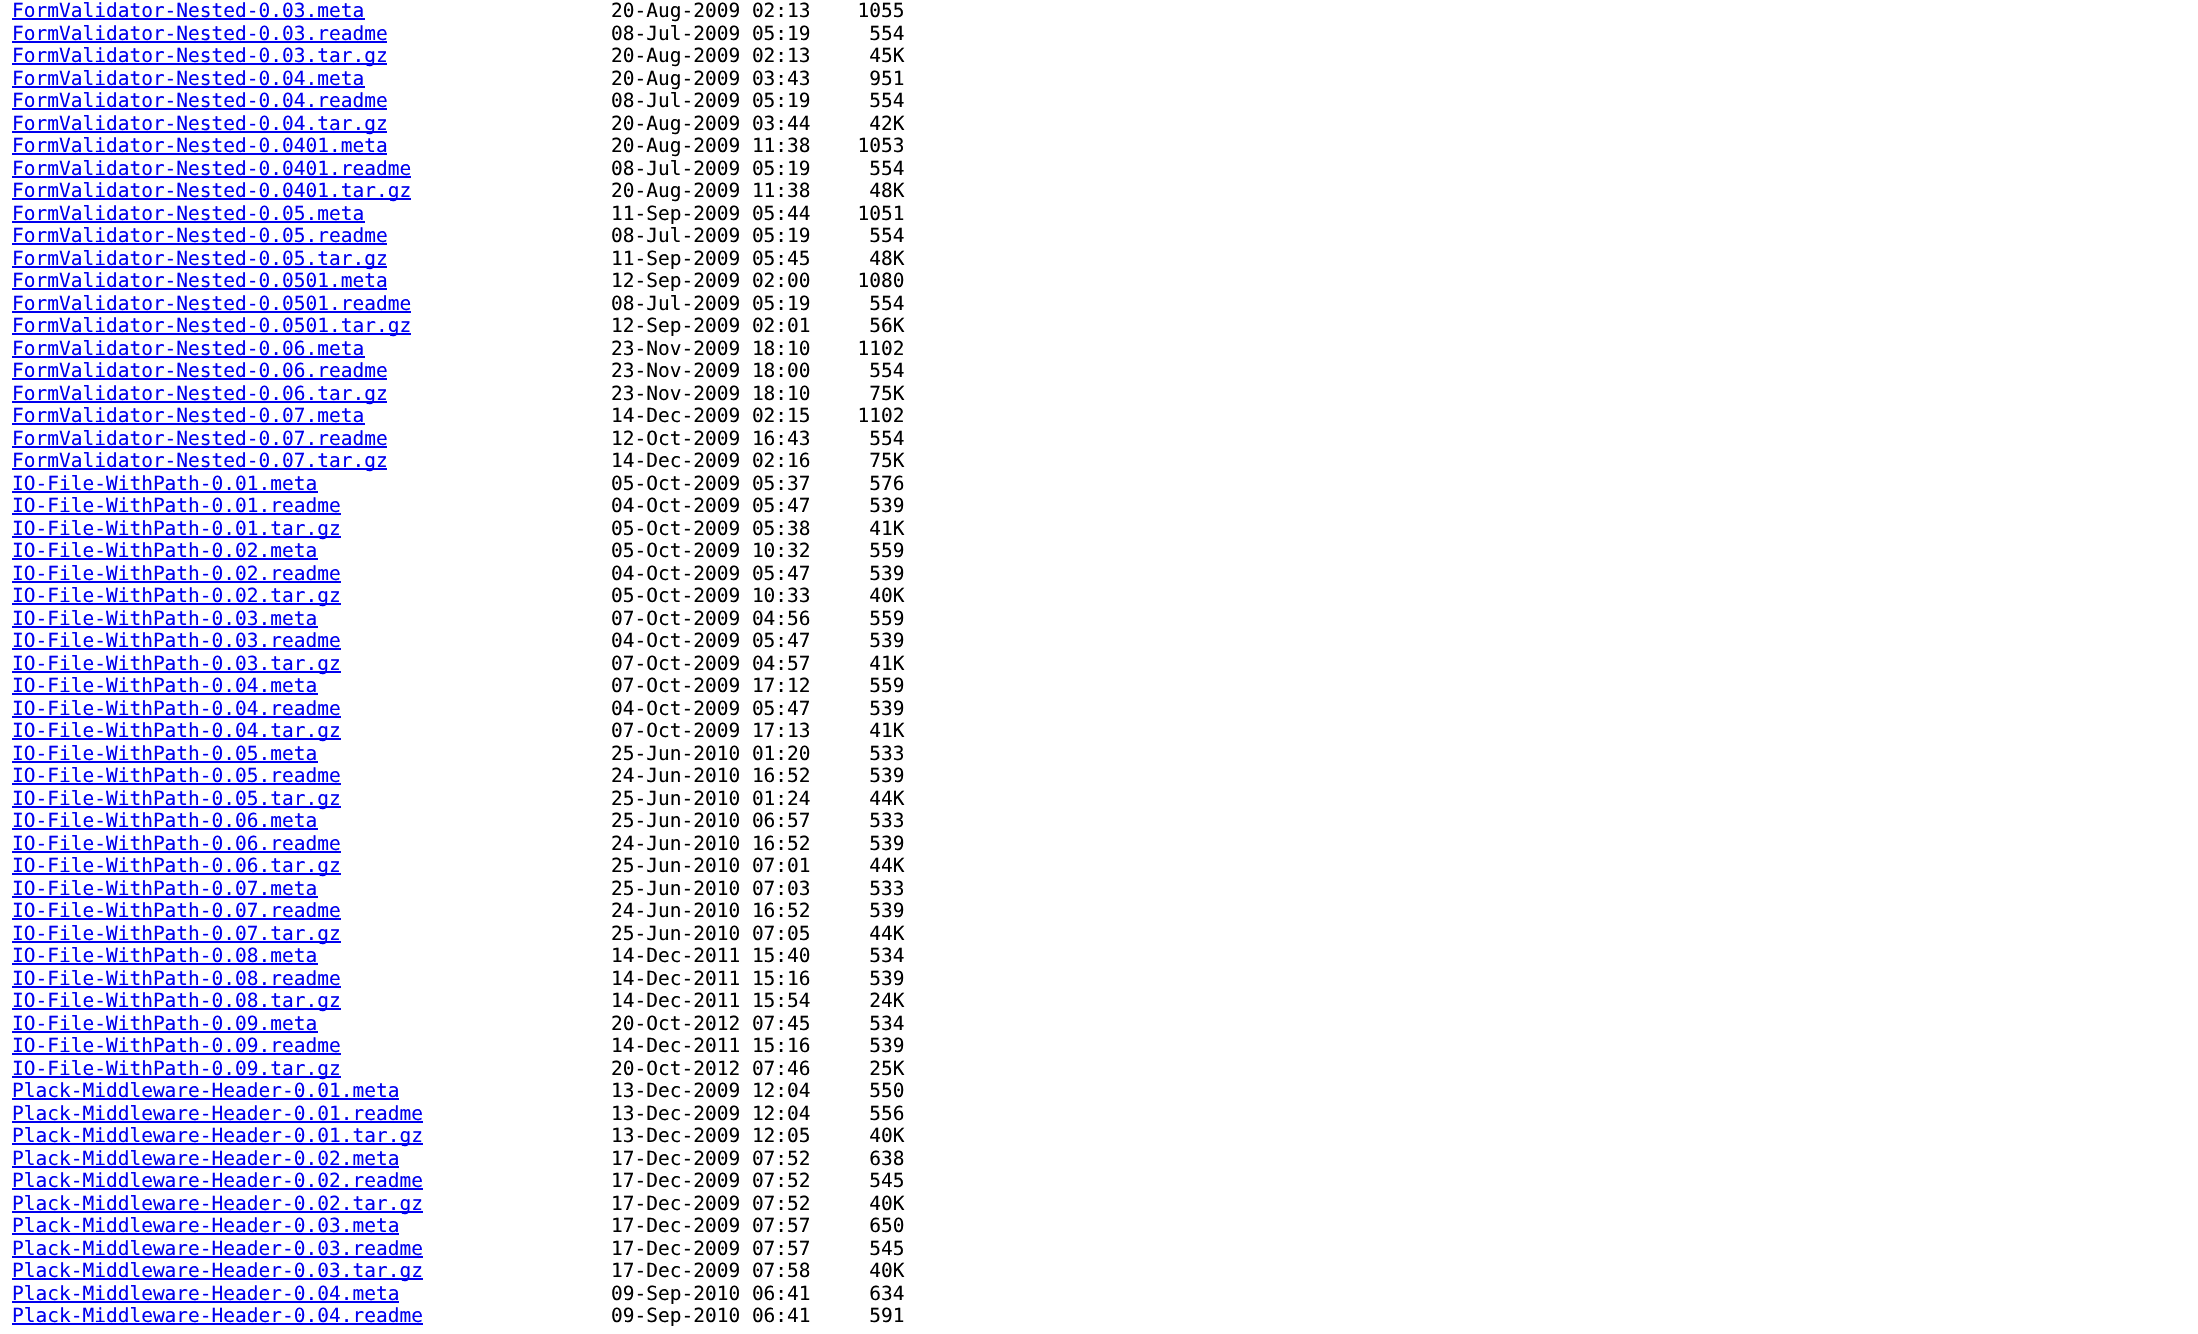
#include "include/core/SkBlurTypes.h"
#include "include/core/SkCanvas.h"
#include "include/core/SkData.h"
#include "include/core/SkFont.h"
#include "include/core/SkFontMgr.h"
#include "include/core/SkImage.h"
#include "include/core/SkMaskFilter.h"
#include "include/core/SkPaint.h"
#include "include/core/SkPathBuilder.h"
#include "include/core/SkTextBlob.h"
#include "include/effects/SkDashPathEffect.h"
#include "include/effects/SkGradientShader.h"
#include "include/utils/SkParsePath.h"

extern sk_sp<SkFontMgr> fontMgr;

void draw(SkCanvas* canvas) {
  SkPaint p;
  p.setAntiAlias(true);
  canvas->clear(SK_ColorWHITE);
  p.setColor(SkColorSetRGB(0, 0, 238));
  canvas->drawRect(SkRect::MakeLTRB(12, 18, 365, 20), p);
  canvas->drawRect(SkRect::MakeLTRB(12, 41, 387, 43), p);
  canvas->drawRect(SkRect::MakeLTRB(12, 63, 387, 65), p);
  canvas->drawRect(SkRect::MakeLTRB(12, 86, 365, 88), p);
  canvas->drawRect(SkRect::MakeLTRB(12, 108, 387, 110), p);
  canvas->drawRect(SkRect::MakeLTRB(12, 131, 387, 133), p);
  canvas->drawRect(SkRect::MakeLTRB(12, 153, 387, 155), p);
  canvas->drawRect(SkRect::MakeLTRB(12, 176, 411, 178), p);
  canvas->drawRect(SkRect::MakeLTRB(12, 198, 411, 200), p);
  canvas->drawRect(SkRect::MakeLTRB(12, 221, 365, 223), p);
  canvas->drawRect(SkRect::MakeLTRB(12, 243, 387, 245), p);
  canvas->drawRect(SkRect::MakeLTRB(12, 266, 387, 268), p);
  canvas->drawRect(SkRect::MakeLTRB(12, 288, 387, 290), p);
  canvas->drawRect(SkRect::MakeLTRB(12, 311, 411, 313), p);
  canvas->drawRect(SkRect::MakeLTRB(12, 333, 411, 335), p);
  canvas->drawRect(SkRect::MakeLTRB(12, 356, 365, 358), p);
  canvas->drawRect(SkRect::MakeLTRB(12, 378, 387, 380), p);
  canvas->drawRect(SkRect::MakeLTRB(12, 401, 387, 403), p);
  canvas->drawRect(SkRect::MakeLTRB(12, 423, 365, 425), p);
  canvas->drawRect(SkRect::MakeLTRB(12, 446, 387, 448), p);
  canvas->drawRect(SkRect::MakeLTRB(12, 468, 387, 470), p);
  canvas->drawRect(SkRect::MakeLTRB(12, 491, 318, 493), p);
  canvas->drawRect(SkRect::MakeLTRB(12, 513, 341, 515), p);
  canvas->drawRect(SkRect::MakeLTRB(12, 536, 341, 538), p);
  canvas->drawRect(SkRect::MakeLTRB(12, 558, 318, 560), p);
  canvas->drawRect(SkRect::MakeLTRB(12, 581, 341, 583), p);
  canvas->drawRect(SkRect::MakeLTRB(12, 603, 341, 605), p);
  canvas->drawRect(SkRect::MakeLTRB(12, 626, 318, 628), p);
  canvas->drawRect(SkRect::MakeLTRB(12, 648, 341, 650), p);
  canvas->drawRect(SkRect::MakeLTRB(12, 671, 341, 673), p);
  canvas->drawRect(SkRect::MakeLTRB(12, 693, 318, 695), p);
  canvas->drawRect(SkRect::MakeLTRB(12, 716, 341, 718), p);
  canvas->drawRect(SkRect::MakeLTRB(12, 738, 341, 740), p);
  canvas->drawRect(SkRect::MakeLTRB(12, 761, 318, 763), p);
  canvas->drawRect(SkRect::MakeLTRB(12, 783, 341, 785), p);
  canvas->drawRect(SkRect::MakeLTRB(12, 806, 341, 808), p);
  canvas->drawRect(SkRect::MakeLTRB(12, 828, 318, 830), p);
  canvas->drawRect(SkRect::MakeLTRB(12, 851, 341, 853), p);
  canvas->drawRect(SkRect::MakeLTRB(12, 873, 341, 875), p);
  canvas->drawRect(SkRect::MakeLTRB(12, 896, 318, 898), p);
  canvas->drawRect(SkRect::MakeLTRB(12, 918, 341, 920), p);
  canvas->drawRect(SkRect::MakeLTRB(12, 941, 341, 943), p);
  canvas->drawRect(SkRect::MakeLTRB(12, 963, 318, 965), p);
  canvas->drawRect(SkRect::MakeLTRB(12, 986, 341, 988), p);
  canvas->drawRect(SkRect::MakeLTRB(12, 1008, 341, 1010), p);
  canvas->drawRect(SkRect::MakeLTRB(12, 1031, 318, 1033), p);
  canvas->drawRect(SkRect::MakeLTRB(12, 1053, 341, 1055), p);
  canvas->drawRect(SkRect::MakeLTRB(12, 1076, 341, 1078), p);
  canvas->drawRect(SkRect::MakeLTRB(12, 1098, 399, 1100), p);
  canvas->drawRect(SkRect::MakeLTRB(12, 1121, 423, 1123), p);
  canvas->drawRect(SkRect::MakeLTRB(12, 1143, 423, 1145), p);
  canvas->drawRect(SkRect::MakeLTRB(12, 1166, 399, 1168), p);
  canvas->drawRect(SkRect::MakeLTRB(12, 1188, 423, 1190), p);
  canvas->drawRect(SkRect::MakeLTRB(12, 1211, 423, 1213), p);
  canvas->drawRect(SkRect::MakeLTRB(12, 1233, 399, 1235), p);
  canvas->drawRect(SkRect::MakeLTRB(12, 1256, 423, 1258), p);
  canvas->drawRect(SkRect::MakeLTRB(12, 1278, 423, 1280), p);
  canvas->drawRect(SkRect::MakeLTRB(12, 1301, 399, 1303), p);
  canvas->drawRect(SkRect::MakeLTRB(12, 1323, 423, 1325), p);
  SkFont font1(fontMgr->matchFamilyStyle("DejaVu Sans Mono", SkFontStyle::Normal()), 19.5f);
  font1.setSubpixel(true);
  canvas->drawString("FormValidator-Nested-0.03.meta", 12, 17, font1, p);
  p.setColor(SK_ColorBLACK);
  canvas->drawString("20-Aug-2009 02:13    1055", 611, 17, font1, p);
  p.setColor(SkColorSetRGB(0, 0, 238));
  canvas->drawString("FormValidator-Nested-0.03.readme", 12, 40, font1, p);
  p.setColor(SK_ColorBLACK);
  canvas->drawString("08-Jul-2009 05:19     554", 611, 40, font1, p);
  p.setColor(SkColorSetRGB(0, 0, 238));
  canvas->drawString("FormValidator-Nested-0.03.tar.gz", 12, 62, font1, p);
  p.setColor(SK_ColorBLACK);
  canvas->drawString("20-Aug-2009 02:13     45K", 611, 62, font1, p);
  p.setColor(SkColorSetRGB(0, 0, 238));
  canvas->drawString("FormValidator-Nested-0.04.meta", 12, 85, font1, p);
  p.setColor(SK_ColorBLACK);
  canvas->drawString("20-Aug-2009 03:43     951", 611, 85, font1, p);
  p.setColor(SkColorSetRGB(0, 0, 238));
  canvas->drawString("FormValidator-Nested-0.04.readme", 12, 107, font1, p);
  p.setColor(SK_ColorBLACK);
  canvas->drawString("08-Jul-2009 05:19     554", 611, 107, font1, p);
  p.setColor(SkColorSetRGB(0, 0, 238));
  canvas->drawString("FormValidator-Nested-0.04.tar.gz", 12, 130, font1, p);
  p.setColor(SK_ColorBLACK);
  canvas->drawString("20-Aug-2009 03:44     42K", 611, 130, font1, p);
  p.setColor(SkColorSetRGB(0, 0, 238));
  canvas->drawString("FormValidator-Nested-0.0401.meta", 12, 152, font1, p);
  p.setColor(SK_ColorBLACK);
  canvas->drawString("20-Aug-2009 11:38    1053", 611, 152, font1, p);
  p.setColor(SkColorSetRGB(0, 0, 238));
  canvas->drawString("FormValidator-Nested-0.0401.readme", 12, 175, font1, p);
  p.setColor(SK_ColorBLACK);
  canvas->drawString("08-Jul-2009 05:19     554", 611, 175, font1, p);
  p.setColor(SkColorSetRGB(0, 0, 238));
  canvas->drawString("FormValidator-Nested-0.0401.tar.gz", 12, 197, font1, p);
  p.setColor(SK_ColorBLACK);
  canvas->drawString("20-Aug-2009 11:38     48K", 611, 197, font1, p);
  p.setColor(SkColorSetRGB(0, 0, 238));
  canvas->drawString("FormValidator-Nested-0.05.meta", 12, 220, font1, p);
  p.setColor(SK_ColorBLACK);
  canvas->drawString("11-Sep-2009 05:44    1051", 611, 220, font1, p);
  p.setColor(SkColorSetRGB(0, 0, 238));
  canvas->drawString("FormValidator-Nested-0.05.readme", 12, 242, font1, p);
  p.setColor(SK_ColorBLACK);
  canvas->drawString("08-Jul-2009 05:19     554", 611, 242, font1, p);
  p.setColor(SkColorSetRGB(0, 0, 238));
  canvas->drawString("FormValidator-Nested-0.05.tar.gz", 12, 265, font1, p);
  p.setColor(SK_ColorBLACK);
  canvas->drawString("11-Sep-2009 05:45     48K", 611, 265, font1, p);
  p.setColor(SkColorSetRGB(0, 0, 238));
  canvas->drawString("FormValidator-Nested-0.0501.meta", 12, 287, font1, p);
  p.setColor(SK_ColorBLACK);
  canvas->drawString("12-Sep-2009 02:00    1080", 611, 287, font1, p);
  p.setColor(SkColorSetRGB(0, 0, 238));
  canvas->drawString("FormValidator-Nested-0.0501.readme", 12, 310, font1, p);
  p.setColor(SK_ColorBLACK);
  canvas->drawString("08-Jul-2009 05:19     554", 611, 310, font1, p);
  p.setColor(SkColorSetRGB(0, 0, 238));
  canvas->drawString("FormValidator-Nested-0.0501.tar.gz", 12, 332, font1, p);
  p.setColor(SK_ColorBLACK);
  canvas->drawString("12-Sep-2009 02:01     56K", 611, 332, font1, p);
  p.setColor(SkColorSetRGB(0, 0, 238));
  canvas->drawString("FormValidator-Nested-0.06.meta", 12, 355, font1, p);
  p.setColor(SK_ColorBLACK);
  canvas->drawString("23-Nov-2009 18:10    1102", 611, 355, font1, p);
  p.setColor(SkColorSetRGB(0, 0, 238));
  canvas->drawString("FormValidator-Nested-0.06.readme", 12, 377, font1, p);
  p.setColor(SK_ColorBLACK);
  canvas->drawString("23-Nov-2009 18:00     554", 611, 377, font1, p);
  p.setColor(SkColorSetRGB(0, 0, 238));
  canvas->drawString("FormValidator-Nested-0.06.tar.gz", 12, 400, font1, p);
  p.setColor(SK_ColorBLACK);
  canvas->drawString("23-Nov-2009 18:10     75K", 611, 400, font1, p);
  p.setColor(SkColorSetRGB(0, 0, 238));
  canvas->drawString("FormValidator-Nested-0.07.meta", 12, 422, font1, p);
  p.setColor(SK_ColorBLACK);
  canvas->drawString("14-Dec-2009 02:15    1102", 611, 422, font1, p);
  p.setColor(SkColorSetRGB(0, 0, 238));
  canvas->drawString("FormValidator-Nested-0.07.readme", 12, 445, font1, p);
  p.setColor(SK_ColorBLACK);
  canvas->drawString("12-Oct-2009 16:43     554", 611, 445, font1, p);
  p.setColor(SkColorSetRGB(0, 0, 238));
  canvas->drawString("FormValidator-Nested-0.07.tar.gz", 12, 467, font1, p);
  p.setColor(SK_ColorBLACK);
  canvas->drawString("14-Dec-2009 02:16     75K", 611, 467, font1, p);
  p.setColor(SkColorSetRGB(0, 0, 238));
  canvas->drawString("IO-File-WithPath-0.01.meta", 12, 490, font1, p);
  p.setColor(SK_ColorBLACK);
  canvas->drawString("05-Oct-2009 05:37     576", 611, 490, font1, p);
  p.setColor(SkColorSetRGB(0, 0, 238));
  canvas->drawString("IO-File-WithPath-0.01.readme", 12, 512, font1, p);
  p.setColor(SK_ColorBLACK);
  canvas->drawString("04-Oct-2009 05:47     539", 611, 512, font1, p);
  p.setColor(SkColorSetRGB(0, 0, 238));
  canvas->drawString("IO-File-WithPath-0.01.tar.gz", 12, 535, font1, p);
  p.setColor(SK_ColorBLACK);
  canvas->drawString("05-Oct-2009 05:38     41K", 611, 535, font1, p);
  p.setColor(SkColorSetRGB(0, 0, 238));
  canvas->drawString("IO-File-WithPath-0.02.meta", 12, 557, font1, p);
  p.setColor(SK_ColorBLACK);
  canvas->drawString("05-Oct-2009 10:32     559", 611, 557, font1, p);
  p.setColor(SkColorSetRGB(0, 0, 238));
  canvas->drawString("IO-File-WithPath-0.02.readme", 12, 580, font1, p);
  p.setColor(SK_ColorBLACK);
  canvas->drawString("04-Oct-2009 05:47     539", 611, 580, font1, p);
  p.setColor(SkColorSetRGB(0, 0, 238));
  canvas->drawString("IO-File-WithPath-0.02.tar.gz", 12, 602, font1, p);
  p.setColor(SK_ColorBLACK);
  canvas->drawString("05-Oct-2009 10:33     40K", 611, 602, font1, p);
  p.setColor(SkColorSetRGB(0, 0, 238));
  canvas->drawString("IO-File-WithPath-0.03.meta", 12, 625, font1, p);
  p.setColor(SK_ColorBLACK);
  canvas->drawString("07-Oct-2009 04:56     559", 611, 625, font1, p);
  p.setColor(SkColorSetRGB(0, 0, 238));
  canvas->drawString("IO-File-WithPath-0.03.readme", 12, 647, font1, p);
  p.setColor(SK_ColorBLACK);
  canvas->drawString("04-Oct-2009 05:47     539", 611, 647, font1, p);
  p.setColor(SkColorSetRGB(0, 0, 238));
  canvas->drawString("IO-File-WithPath-0.03.tar.gz", 12, 670, font1, p);
  p.setColor(SK_ColorBLACK);
  canvas->drawString("07-Oct-2009 04:57     41K", 611, 670, font1, p);
  p.setColor(SkColorSetRGB(0, 0, 238));
  canvas->drawString("IO-File-WithPath-0.04.meta", 12, 692, font1, p);
  p.setColor(SK_ColorBLACK);
  canvas->drawString("07-Oct-2009 17:12     559", 611, 692, font1, p);
  p.setColor(SkColorSetRGB(0, 0, 238));
  canvas->drawString("IO-File-WithPath-0.04.readme", 12, 715, font1, p);
  p.setColor(SK_ColorBLACK);
  canvas->drawString("04-Oct-2009 05:47     539", 611, 715, font1, p);
  p.setColor(SkColorSetRGB(0, 0, 238));
  canvas->drawString("IO-File-WithPath-0.04.tar.gz", 12, 737, font1, p);
  p.setColor(SK_ColorBLACK);
  canvas->drawString("07-Oct-2009 17:13     41K", 611, 737, font1, p);
  p.setColor(SkColorSetRGB(0, 0, 238));
  canvas->drawString("IO-File-WithPath-0.05.meta", 12, 760, font1, p);
  p.setColor(SK_ColorBLACK);
  canvas->drawString("25-Jun-2010 01:20     533", 611, 760, font1, p);
  p.setColor(SkColorSetRGB(0, 0, 238));
  canvas->drawString("IO-File-WithPath-0.05.readme", 12, 782, font1, p);
  p.setColor(SK_ColorBLACK);
  canvas->drawString("24-Jun-2010 16:52     539", 611, 782, font1, p);
  p.setColor(SkColorSetRGB(0, 0, 238));
  canvas->drawString("IO-File-WithPath-0.05.tar.gz", 12, 805, font1, p);
  p.setColor(SK_ColorBLACK);
  canvas->drawString("25-Jun-2010 01:24     44K", 611, 805, font1, p);
  p.setColor(SkColorSetRGB(0, 0, 238));
  canvas->drawString("IO-File-WithPath-0.06.meta", 12, 827, font1, p);
  p.setColor(SK_ColorBLACK);
  canvas->drawString("25-Jun-2010 06:57     533", 611, 827, font1, p);
  p.setColor(SkColorSetRGB(0, 0, 238));
  canvas->drawString("IO-File-WithPath-0.06.readme", 12, 850, font1, p);
  p.setColor(SK_ColorBLACK);
  canvas->drawString("24-Jun-2010 16:52     539", 611, 850, font1, p);
  p.setColor(SkColorSetRGB(0, 0, 238));
  canvas->drawString("IO-File-WithPath-0.06.tar.gz", 12, 872, font1, p);
  p.setColor(SK_ColorBLACK);
  canvas->drawString("25-Jun-2010 07:01     44K", 611, 872, font1, p);
  p.setColor(SkColorSetRGB(0, 0, 238));
  canvas->drawString("IO-File-WithPath-0.07.meta", 12, 895, font1, p);
  p.setColor(SK_ColorBLACK);
  canvas->drawString("25-Jun-2010 07:03     533", 611, 895, font1, p);
  p.setColor(SkColorSetRGB(0, 0, 238));
  canvas->drawString("IO-File-WithPath-0.07.readme", 12, 917, font1, p);
  p.setColor(SK_ColorBLACK);
  canvas->drawString("24-Jun-2010 16:52     539", 611, 917, font1, p);
  p.setColor(SkColorSetRGB(0, 0, 238));
  canvas->drawString("IO-File-WithPath-0.07.tar.gz", 12, 940, font1, p);
  p.setColor(SK_ColorBLACK);
  canvas->drawString("25-Jun-2010 07:05     44K", 611, 940, font1, p);
  p.setColor(SkColorSetRGB(0, 0, 238));
  canvas->drawString("IO-File-WithPath-0.08.meta", 12, 962, font1, p);
  p.setColor(SK_ColorBLACK);
  canvas->drawString("14-Dec-2011 15:40     534", 611, 962, font1, p);
  p.setColor(SkColorSetRGB(0, 0, 238));
  canvas->drawString("IO-File-WithPath-0.08.readme", 12, 985, font1, p);
  p.setColor(SK_ColorBLACK);
  canvas->drawString("14-Dec-2011 15:16     539", 611, 985, font1, p);
  p.setColor(SkColorSetRGB(0, 0, 238));
  canvas->drawString("IO-File-WithPath-0.08.tar.gz", 12, 1007, font1, p);
  p.setColor(SK_ColorBLACK);
  canvas->drawString("14-Dec-2011 15:54     24K", 611, 1007, font1, p);
  p.setColor(SkColorSetRGB(0, 0, 238));
  canvas->drawString("IO-File-WithPath-0.09.meta", 12, 1030, font1, p);
  p.setColor(SK_ColorBLACK);
  canvas->drawString("20-Oct-2012 07:45     534", 611, 1030, font1, p);
  p.setColor(SkColorSetRGB(0, 0, 238));
  canvas->drawString("IO-File-WithPath-0.09.readme", 12, 1052, font1, p);
  p.setColor(SK_ColorBLACK);
  canvas->drawString("14-Dec-2011 15:16     539", 611, 1052, font1, p);
  p.setColor(SkColorSetRGB(0, 0, 238));
  canvas->drawString("IO-File-WithPath-0.09.tar.gz", 12, 1075, font1, p);
  p.setColor(SK_ColorBLACK);
  canvas->drawString("20-Oct-2012 07:46     25K", 611, 1075, font1, p);
  p.setColor(SkColorSetRGB(0, 0, 238));
  canvas->drawString("Plack-Middleware-Header-0.01.meta", 12, 1097, font1, p);
  p.setColor(SK_ColorBLACK);
  canvas->drawString("13-Dec-2009 12:04     550", 611, 1097, font1, p);
  p.setColor(SkColorSetRGB(0, 0, 238));
  canvas->drawString("Plack-Middleware-Header-0.01.readme", 12, 1120, font1, p);
  p.setColor(SK_ColorBLACK);
  canvas->drawString("13-Dec-2009 12:04     556", 611, 1120, font1, p);
  p.setColor(SkColorSetRGB(0, 0, 238));
  canvas->drawString("Plack-Middleware-Header-0.01.tar.gz", 12, 1142, font1, p);
  p.setColor(SK_ColorBLACK);
  canvas->drawString("13-Dec-2009 12:05     40K", 611, 1142, font1, p);
  p.setColor(SkColorSetRGB(0, 0, 238));
  canvas->drawString("Plack-Middleware-Header-0.02.meta", 12, 1165, font1, p);
  p.setColor(SK_ColorBLACK);
  canvas->drawString("17-Dec-2009 07:52     638", 611, 1165, font1, p);
  p.setColor(SkColorSetRGB(0, 0, 238));
  canvas->drawString("Plack-Middleware-Header-0.02.readme", 12, 1187, font1, p);
  p.setColor(SK_ColorBLACK);
  canvas->drawString("17-Dec-2009 07:52     545", 611, 1187, font1, p);
  p.setColor(SkColorSetRGB(0, 0, 238));
  canvas->drawString("Plack-Middleware-Header-0.02.tar.gz", 12, 1210, font1, p);
  p.setColor(SK_ColorBLACK);
  canvas->drawString("17-Dec-2009 07:52     40K", 611, 1210, font1, p);
  p.setColor(SkColorSetRGB(0, 0, 238));
  canvas->drawString("Plack-Middleware-Header-0.03.meta", 12, 1232, font1, p);
  p.setColor(SK_ColorBLACK);
  canvas->drawString("17-Dec-2009 07:57     650", 611, 1232, font1, p);
  p.setColor(SkColorSetRGB(0, 0, 238));
  canvas->drawString("Plack-Middleware-Header-0.03.readme", 12, 1255, font1, p);
  p.setColor(SK_ColorBLACK);
  canvas->drawString("17-Dec-2009 07:57     545", 611, 1255, font1, p);
  p.setColor(SkColorSetRGB(0, 0, 238));
  canvas->drawString("Plack-Middleware-Header-0.03.tar.gz", 12, 1277, font1, p);
  p.setColor(SK_ColorBLACK);
  canvas->drawString("17-Dec-2009 07:58     40K", 611, 1277, font1, p);
  p.setColor(SkColorSetRGB(0, 0, 238));
  canvas->drawString("Plack-Middleware-Header-0.04.meta", 12, 1300, font1, p);
  p.setColor(SK_ColorBLACK);
  canvas->drawString("09-Sep-2010 06:41     634", 611, 1300, font1, p);
  p.setColor(SkColorSetRGB(0, 0, 238));
  canvas->drawString("Plack-Middleware-Header-0.04.readme", 12, 1322, font1, p);
  p.setColor(SK_ColorBLACK);
  canvas->drawString("09-Sep-2010 06:41     591", 611, 1322, font1, p);
}
